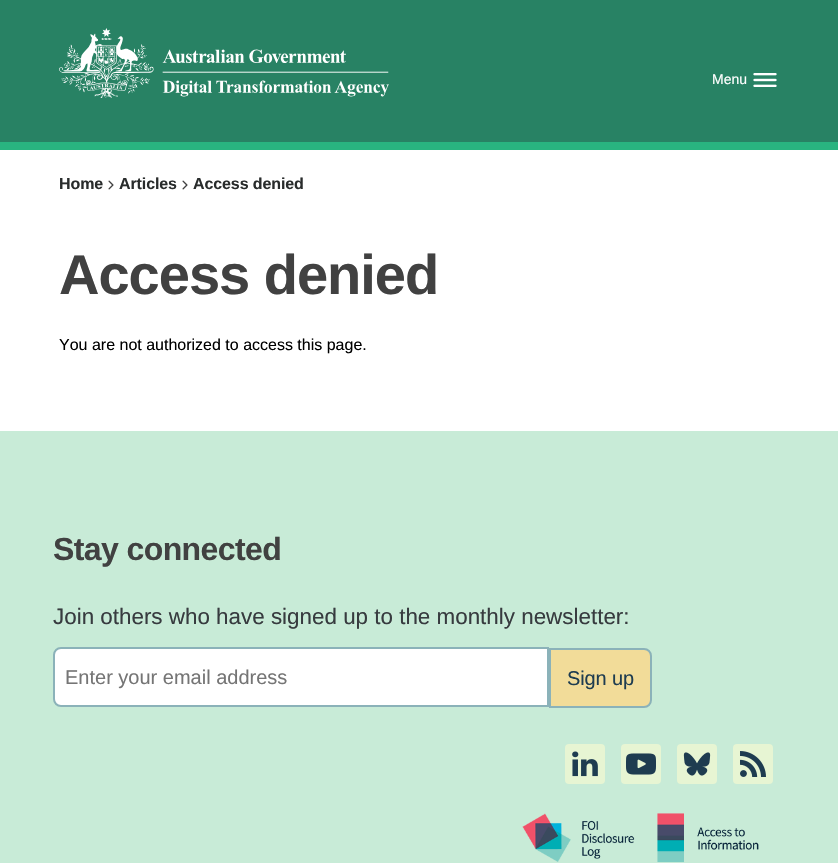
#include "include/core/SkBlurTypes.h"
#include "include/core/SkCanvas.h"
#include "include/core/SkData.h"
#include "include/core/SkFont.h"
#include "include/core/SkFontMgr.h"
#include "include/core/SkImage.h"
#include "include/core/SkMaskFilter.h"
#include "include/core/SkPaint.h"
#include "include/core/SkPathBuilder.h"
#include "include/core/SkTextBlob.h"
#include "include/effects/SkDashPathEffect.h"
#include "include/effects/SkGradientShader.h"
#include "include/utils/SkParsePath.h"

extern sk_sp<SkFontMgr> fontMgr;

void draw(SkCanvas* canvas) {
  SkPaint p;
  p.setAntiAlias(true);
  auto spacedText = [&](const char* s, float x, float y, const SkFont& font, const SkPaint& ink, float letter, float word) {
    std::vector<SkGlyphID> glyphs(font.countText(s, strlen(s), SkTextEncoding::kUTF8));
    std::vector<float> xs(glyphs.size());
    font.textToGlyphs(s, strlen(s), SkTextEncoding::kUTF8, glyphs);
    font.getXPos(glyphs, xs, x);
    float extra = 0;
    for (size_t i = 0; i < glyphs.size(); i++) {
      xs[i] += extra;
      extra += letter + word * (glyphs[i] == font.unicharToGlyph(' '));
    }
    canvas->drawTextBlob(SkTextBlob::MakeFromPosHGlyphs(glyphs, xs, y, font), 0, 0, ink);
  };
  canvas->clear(SK_ColorWHITE);
  p.setColor(SkColorSetRGB(40, 130, 100));
  canvas->drawRect(SkRect::MakeLTRB(0, 0, 838, 142), p);
  p.setColor(SkColorSetRGB(41, 180, 128));
  canvas->drawRect(SkRect::MakeLTRB(0, 142, 838, 150), p);
  canvas->drawImageRect(SkImages::DeferredFromEncodedData(SkData::MakeFromFileName("images/1.png")), SkRect::MakeLTRB(59, 28, 389, 98), SkSamplingOptions());
  canvas->drawImageRect(SkImages::DeferredFromEncodedData(SkData::MakeFromFileName("images/2.png")), SkRect::MakeLTRB(753, 73, 777, 87), SkSamplingOptions());
  canvas->drawImageRect(SkImages::DeferredFromEncodedData(SkData::MakeFromFileName("images/3.png")), SkRect::MakeLTRB(108, 180, 114, 190), SkSamplingOptions());
  canvas->drawImageRect(SkImages::DeferredFromEncodedData(SkData::MakeFromFileName("images/3.png")), SkRect::MakeLTRB(182, 180, 188, 190), SkSamplingOptions());
  p.setColor(SkColorSetRGB(200, 235, 215));
  canvas->drawRect(SkRect::MakeLTRB(0, 431, 838, 863), p);
  p.setColor(SK_ColorWHITE);
  canvas->drawPath(SkPathBuilder().moveTo(61, 648).lineTo(548, 648).lineTo(548, 706).lineTo(61, 706).cubicTo(57, 706, 54, 703, 54, 699).lineTo(54, 655).cubicTo(54, 651, 57, 648, 61, 648).close().detach(), p);
  p.setStyle(SkPaint::kStroke_Style);
  p.setStrokeWidth(2);
  p.setColor(SkColorSetRGB(139, 178, 185));
  canvas->drawPath(SkPathBuilder().moveTo(61, 648).lineTo(548, 648).lineTo(548, 706).lineTo(61, 706).cubicTo(57, 706, 54, 703, 54, 699).lineTo(54, 655).cubicTo(54, 651, 57, 648, 61, 648).close().detach(), p);
  p.setStyle(SkPaint::kFill_Style);
  p.setColor(SkColorSetRGB(242, 220, 153));
  canvas->drawPath(SkPathBuilder().moveTo(550, 649).lineTo(644, 649).cubicTo(648, 649, 651, 652, 651, 656).lineTo(651, 700).cubicTo(651, 704, 648, 707, 644, 707).lineTo(550, 707).close().detach(), p);
  p.setStyle(SkPaint::kStroke_Style);
  p.setColor(SkColorSetRGB(139, 178, 185));
  canvas->drawPath(SkPathBuilder().moveTo(550, 649).lineTo(644, 649).cubicTo(648, 649, 651, 652, 651, 656).lineTo(651, 700).cubicTo(651, 704, 648, 707, 644, 707).lineTo(550, 707).close().detach(), p);
  p.setStyle(SkPaint::kFill_Style);
  p.setColor(SkColorSetRGB(231, 245, 211));
  canvas->drawRoundRect(SkRect::MakeLTRB(565, 744, 605, 784), 4, 4, p);
  canvas->drawImageRect(SkImages::DeferredFromEncodedData(SkData::MakeFromFileName("images/4.png")), SkRect::MakeLTRB(572, 751, 598, 777), SkSamplingOptions());
  canvas->drawRoundRect(SkRect::MakeLTRB(621, 744, 661, 784), 4, 4, p);
  canvas->drawImageRect(SkImages::DeferredFromEncodedData(SkData::MakeFromFileName("images/5.png")), SkRect::MakeLTRB(626, 753, 656, 775), SkSamplingOptions());
  canvas->drawRoundRect(SkRect::MakeLTRB(677, 744, 717, 784), 4, 4, p);
  canvas->drawImageRect(SkImages::DeferredFromEncodedData(SkData::MakeFromFileName("images/6.png")), SkRect::MakeLTRB(683, 752, 711, 776), SkSamplingOptions());
  canvas->drawRoundRect(SkRect::MakeLTRB(733, 744, 773, 784), 4, 4, p);
  canvas->drawImageRect(SkImages::DeferredFromEncodedData(SkData::MakeFromFileName("images/7.png")), SkRect::MakeLTRB(740, 751, 766, 777), SkSamplingOptions());
  canvas->drawImageRect(SkImages::DeferredFromEncodedData(SkData::MakeFromFileName("images/8.png")), SkRect::MakeLTRB(522, 813, 635, 862), SkSamplingOptions());
  canvas->drawImageRect(SkImages::DeferredFromEncodedData(SkData::MakeFromFileName("images/9.png")), SkRect::MakeLTRB(657, 813, 759, 863), SkSamplingOptions());
  SkFont font1(fontMgr->matchFamilyStyle("Liberation Sans", SkFontStyle::Normal()), 14);
  font1.setSubpixel(true);
  p.setColor(SK_ColorWHITE);
  canvas->drawString("Menu", 712, 84, font1, p);
  SkFont font2(fontMgr->matchFamilyStyle("Liberation Sans", SkFontStyle::Bold()), 16);
  font2.setSubpixel(true);
  p.setColor(SkColorSetRGB(41, 44, 44));
  spacedText("Home", 59, 189, font2, p, -0.1f, 0);
  spacedText("Articles", 119, 189, font2, p, -0.1f, 0);
  spacedText("Access denied", 193, 189, font2, p, -0.1f, 0);
  SkFont font3(fontMgr->matchFamilyStyle("Liberation Sans", SkFontStyle::Bold()), 56);
  font3.setSubpixel(true);
  p.setColor(SkColorSetRGB(65, 65, 65));
  spacedText("Access denied", 59, 294, font3, p, -1, 0);
  SkFont font4(fontMgr->matchFamilyStyle("Liberation Sans", SkFontStyle::Normal()), 16);
  font4.setSubpixel(true);
  p.setColor(SK_ColorBLACK);
  canvas->drawString("You are not authorized to access this page.", 59, 350, font4, p);
  SkFont font5(fontMgr->matchFamilyStyle("Liberation Sans", SkFontStyle::Bold()), 32);
  font5.setSubpixel(true);
  p.setColor(SkColorSetRGB(65, 65, 65));
  spacedText("Stay connected", 53, 560, font5, p, -0.6f, 0);
  SkFont font6(fontMgr->matchFamilyStyle("Liberation Sans", SkFontStyle::Normal()), 22.4f);
  font6.setSubpixel(true);
  p.setColor(SkColorSetRGB(55, 59, 63));
  canvas->drawString("Join others who have signed up to the monthly newsletter:", 53, 624, font6, p);
  SkFont font7(fontMgr->matchFamilyStyle("Liberation Sans", SkFontStyle::Normal()), 20);
  font7.setSubpixel(true);
  p.setColor(SkColorSetRGB(117, 117, 117));
  canvas->drawString("Enter your email address", 65, 684, font7, p);
  p.setColor(SkColorSetRGB(30, 60, 80));
  spacedText("Sign up", 567, 685, font7, p, -0.1f, 0);
}
